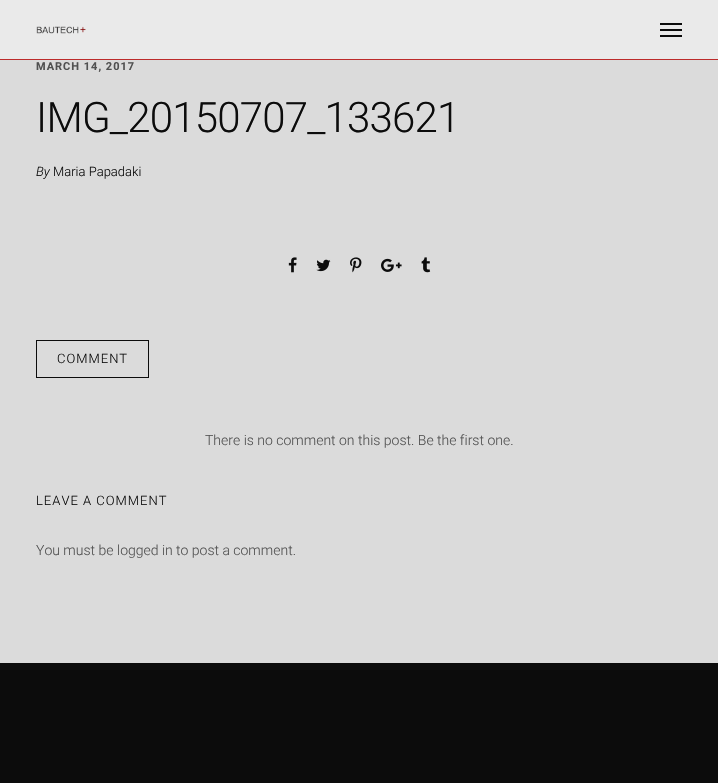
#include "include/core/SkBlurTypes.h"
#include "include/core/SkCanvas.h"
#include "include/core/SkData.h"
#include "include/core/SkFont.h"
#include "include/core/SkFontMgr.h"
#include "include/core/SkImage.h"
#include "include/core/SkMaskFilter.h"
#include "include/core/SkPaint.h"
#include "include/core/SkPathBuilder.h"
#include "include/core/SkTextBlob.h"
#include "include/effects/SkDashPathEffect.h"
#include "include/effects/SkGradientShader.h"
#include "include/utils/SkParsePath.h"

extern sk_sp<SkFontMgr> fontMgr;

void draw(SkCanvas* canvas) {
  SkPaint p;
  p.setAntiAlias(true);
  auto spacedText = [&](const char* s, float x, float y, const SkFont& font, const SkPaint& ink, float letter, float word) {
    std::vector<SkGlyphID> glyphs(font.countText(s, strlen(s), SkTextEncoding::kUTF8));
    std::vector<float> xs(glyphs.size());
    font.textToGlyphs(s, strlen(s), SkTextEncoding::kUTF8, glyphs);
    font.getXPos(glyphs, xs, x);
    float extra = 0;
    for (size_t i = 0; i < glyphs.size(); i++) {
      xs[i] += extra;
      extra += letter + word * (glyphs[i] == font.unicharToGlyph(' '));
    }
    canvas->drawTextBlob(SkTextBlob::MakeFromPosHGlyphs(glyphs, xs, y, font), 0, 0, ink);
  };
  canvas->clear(SkColorSetRGB(219, 219, 219));
  p.setColor(SkColorSetRGB(234, 234, 234));
  canvas->drawRect(SkRect::MakeLTRB(0, 0, 718, 59), p);
  p.setColor(SkColorSetRGB(188, 43, 43));
  canvas->drawRect(SkRect::MakeLTRB(0, 59, 718, 60), p);
  canvas->drawImageRect(SkImages::DeferredFromEncodedData(SkData::MakeFromFileName("images/1.png")), SkRect::MakeLTRB(36, 26, 86, 34), SkSamplingOptions());
  p.setColor(SkColorSetRGB(12, 12, 12));
  canvas->drawRect(SkRect::MakeLTRB(660, 29, 682, 31), p);
  canvas->drawRect(SkRect::MakeLTRB(660, 23, 682, 25), p);
  canvas->drawRect(SkRect::MakeLTRB(660, 35, 682, 37), p);
  canvas->drawImageRect(SkImages::DeferredFromEncodedData(SkData::MakeFromFileName("images/2.png")), SkRect::MakeLTRB(288, 257, 297, 273), SkSamplingOptions());
  canvas->drawImageRect(SkImages::DeferredFromEncodedData(SkData::MakeFromFileName("images/3.png")), SkRect::MakeLTRB(316, 259, 331, 272), SkSamplingOptions());
  canvas->drawImageRect(SkImages::DeferredFromEncodedData(SkData::MakeFromFileName("images/4.png")), SkRect::MakeLTRB(350, 257, 362, 273), SkSamplingOptions());
  canvas->drawImageRect(SkImages::DeferredFromEncodedData(SkData::MakeFromFileName("images/5.png")), SkRect::MakeLTRB(381, 258, 402, 272), SkSamplingOptions());
  canvas->drawImageRect(SkImages::DeferredFromEncodedData(SkData::MakeFromFileName("images/6.png")), SkRect::MakeLTRB(421, 257, 431, 273), SkSamplingOptions());
  p.setStyle(SkPaint::kStroke_Style);
  p.setStrokeWidth(1);
  canvas->drawRect(SkRect::MakeLTRB(36.5f, 340.5f, 148.5f, 377.5f), p);
  p.setStyle(SkPaint::kFill_Style);
  canvas->drawRect(SkRect::MakeLTRB(0, 663, 718, 783), p);
  SkFont font1(fontMgr->matchFamilyStyle("Roboto", SkFontStyle::Bold()), 11);
  font1.setSubpixel(true);
  p.setColor(SkColorSetRGB(81, 81, 81));
  spacedText("MARCH 14, 2017", 36, 70, font1, p, 1, 0);
  SkFont font2(fontMgr->matchFamilyStyle("Roboto", SkFontStyle(300, SkFontStyle::kNormal_Width, SkFontStyle::kUpright_Slant)), 42);
  font2.setSubpixel(true);
  p.setColor(SkColorSetRGB(12, 12, 12));
  spacedText("IMG_20150707_133621", 36, 132, font2, p, -0.8f, 0);
  SkFont font3(fontMgr->matchFamilyStyle("Roboto", SkFontStyle(300, SkFontStyle::kNormal_Width, SkFontStyle::kItalic_Slant)), 13);
  font3.setSubpixel(true);
  canvas->drawString("By", 36, 176, font3, p);
  SkFont font4(fontMgr->matchFamilyStyle("Roboto", SkFontStyle(300, SkFontStyle::kNormal_Width, SkFontStyle::kUpright_Slant)), 13);
  font4.setSubpixel(true);
  canvas->drawString("Maria Papadaki", 53, 176, font4, p);
  spacedText("COMMENT", 57, 363, font4, p, 1, 0);
  SkFont font5(fontMgr->matchFamilyStyle("Roboto", SkFontStyle(300, SkFontStyle::kNormal_Width, SkFontStyle::kUpright_Slant)), 14);
  font5.setSubpixel(true);
  p.setColor(SkColorSetRGB(81, 81, 81));
  canvas->drawString("There is no comment on this post. Be the first one.", 205, 445, font5, p);
  p.setColor(SkColorSetRGB(12, 12, 12));
  spacedText("LEAVE A COMMENT", 36, 505, font4, p, 1, 0);
  p.setColor(SkColorSetRGB(81, 81, 81));
  canvas->drawString("You must be", 36, 555, font5, p);
  canvas->drawString("logged in", 117, 555, font5, p);
  canvas->drawString("to post a comment.", 176, 555, font5, p);
}
